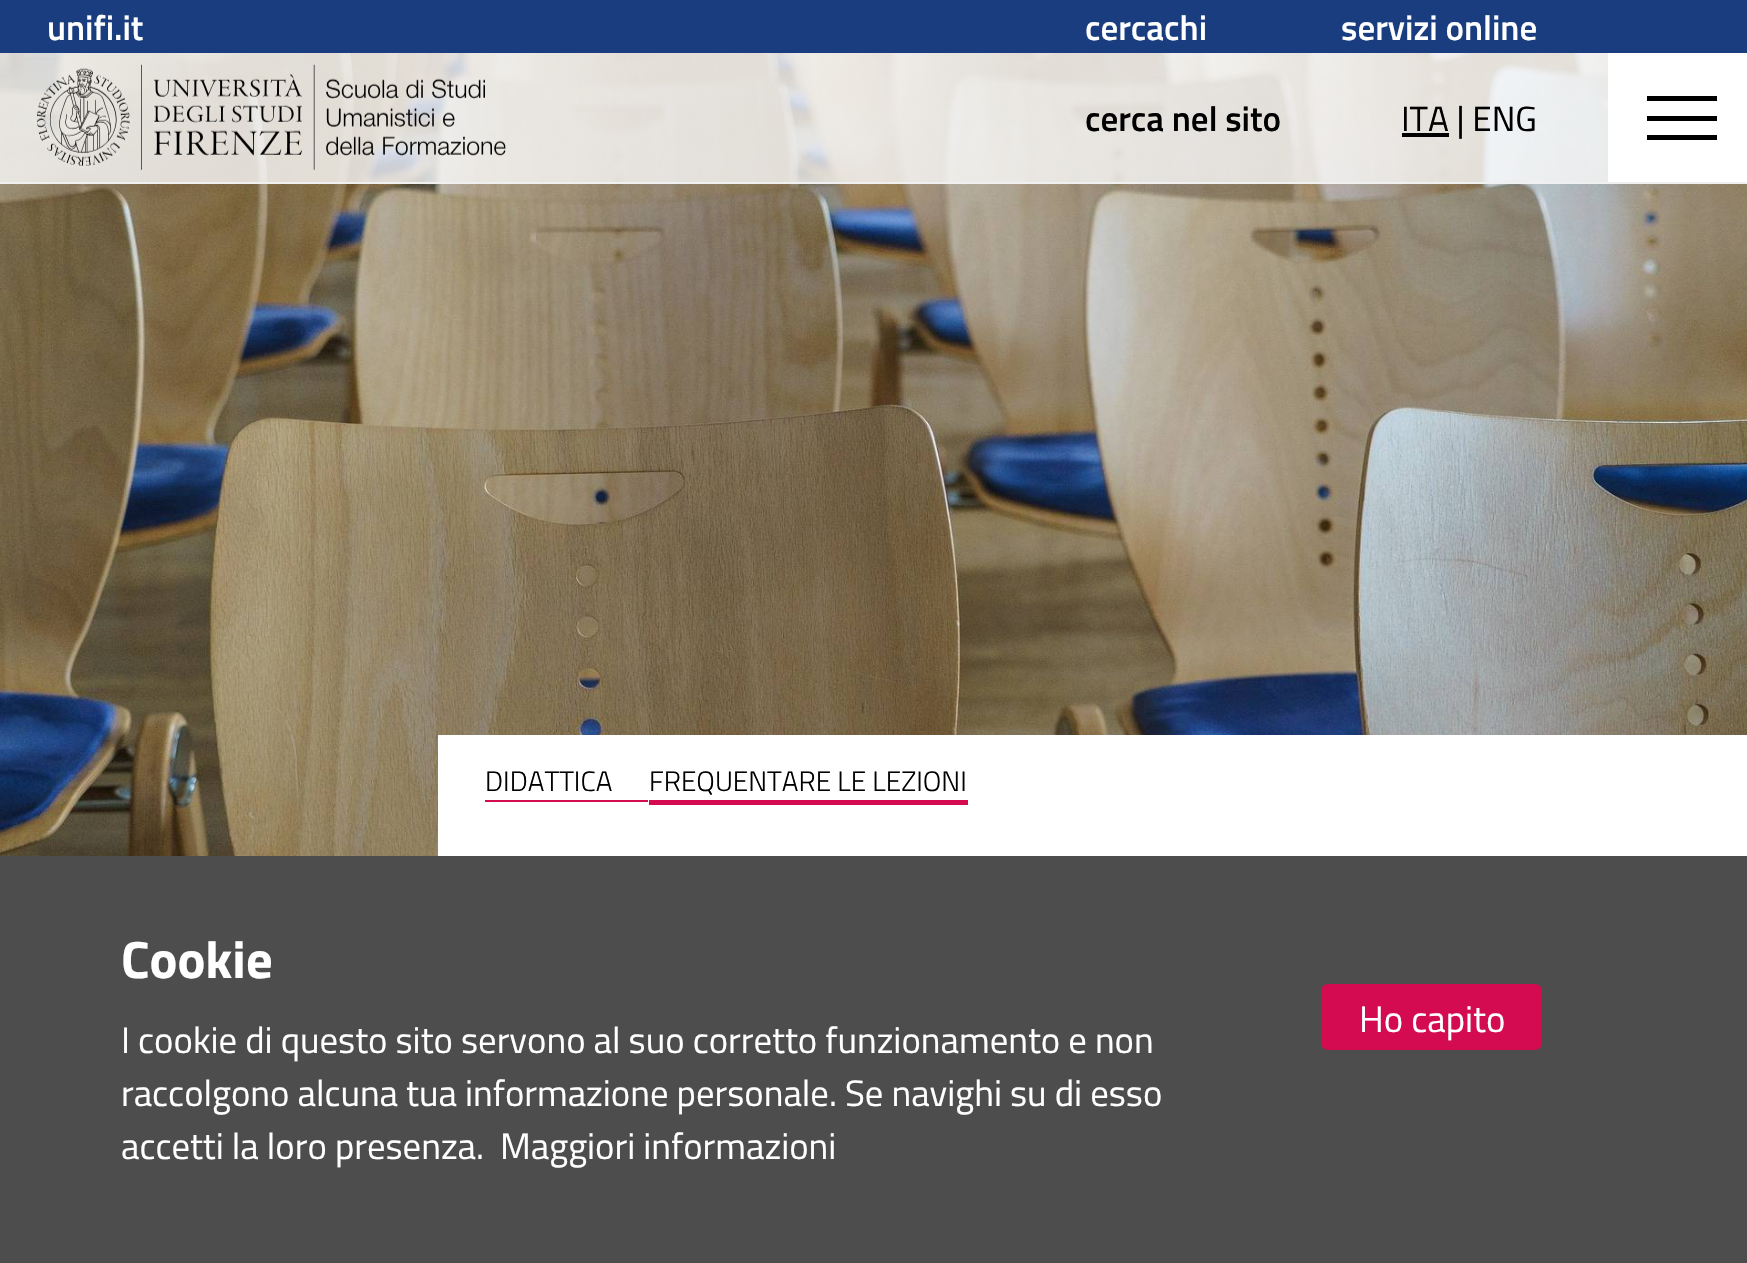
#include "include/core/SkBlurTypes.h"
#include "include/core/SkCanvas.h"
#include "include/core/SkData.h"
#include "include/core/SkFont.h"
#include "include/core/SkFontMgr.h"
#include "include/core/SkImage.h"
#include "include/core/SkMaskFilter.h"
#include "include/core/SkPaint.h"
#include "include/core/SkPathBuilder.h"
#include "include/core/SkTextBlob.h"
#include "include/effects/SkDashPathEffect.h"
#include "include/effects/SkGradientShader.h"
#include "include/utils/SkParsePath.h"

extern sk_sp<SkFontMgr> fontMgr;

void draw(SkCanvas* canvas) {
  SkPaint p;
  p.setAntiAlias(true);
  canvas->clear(SK_ColorWHITE);
  canvas->drawImageRect(SkImages::DeferredFromEncodedData(SkData::MakeFromFileName("images/2.png")), SkRect::MakeLTRB(0, 53, 1747, 856), SkSamplingOptions());
  p.setColor(SkColorSetARGB(204, 250, 250, 250));
  canvas->drawRect(SkRect::MakeLTRB(0, 53, 1608, 182), p);
  p.setColor(SkColorSetRGB(240, 240, 240));
  canvas->drawRect(SkRect::MakeLTRB(0, 182, 1747, 184), p);
  p.setColor(SkColorSetRGB(26, 61, 127));
  canvas->drawRect(SkRect::MakeLTRB(0, 0, 1747, 53), p);
  canvas->drawImageRect(SkImages::DeferredFromEncodedData(SkData::MakeFromFileName("images/1.png")), SkRect::MakeLTRB(37, 64, 506, 170), SkSamplingOptions());
  p.setColor(SK_ColorBLACK);
  canvas->drawRect(SkRect::MakeLTRB(1402, 133, 1449, 137), p);
  p.setColor(SK_ColorWHITE);
  canvas->drawRect(SkRect::MakeLTRB(1608, 53, 1747, 182), p);
  p.setColor(SK_ColorBLACK);
  canvas->drawRect(SkRect::MakeLTRB(1647, 96, 1717, 101), p);
  canvas->drawRect(SkRect::MakeLTRB(1647, 116, 1717, 121), p);
  canvas->drawRect(SkRect::MakeLTRB(1647, 135, 1717, 140), p);
  p.setColor(SK_ColorWHITE);
  canvas->drawRect(SkRect::MakeLTRB(438, 735, 1747, 856), p);
  p.setColor(SkColorSetRGB(212, 11, 81));
  canvas->drawRect(SkRect::MakeLTRB(485, 800, 648, 802), p);
  canvas->drawRect(SkRect::MakeLTRB(649, 800, 968, 805), p);
  p.setColor(SkColorSetRGB(77, 77, 77));
  canvas->drawRect(SkRect::MakeLTRB(0, 856, 1747, 1263), p);
  p.setColor(SkColorSetRGB(212, 11, 81));
  canvas->drawRoundRect(SkRect::MakeLTRB(1321, 984, 1542, 1050), 7, 7, p);
  SkFont font1(fontMgr->matchFamilyStyle("Titillium Web", SkFontStyle(600, SkFontStyle::kNormal_Width, SkFontStyle::kUpright_Slant)), 35);
  font1.setSubpixel(true);
  p.setColor(SK_ColorWHITE);
  canvas->drawString("unifi.it", 47, 40, font1, p);
  canvas->drawString("cercachi", 1085, 40, font1, p);
  canvas->drawString("servizi online", 1341, 40, font1, p);
  p.setColor(SK_ColorBLACK);
  canvas->drawString("cerca nel sito", 1085, 131, font1, p);
  SkFont font2(fontMgr->matchFamilyStyle("Titillium Web", SkFontStyle::Normal()), 35);
  font2.setSubpixel(true);
  canvas->drawString("ITA | ENG", 1401, 131, font2, p);
  SkFont font3(fontMgr->matchFamilyStyle("Titillium Web", SkFontStyle(300, SkFontStyle::kNormal_Width, SkFontStyle::kUpright_Slant)), 28);
  font3.setSubpixel(true);
  canvas->drawString("DIDATTICA", 485, 791, font3, p);
  canvas->drawString("FREQUENTARE LE LEZIONI", 649, 791, font3, p);
  SkFont font4(fontMgr->matchFamilyStyle("Titillium Web", SkFontStyle::Bold()), 52.5f);
  font4.setSubpixel(true);
  p.setColor(SK_ColorWHITE);
  canvas->drawString("Cookie", 121, 978, font4, p);
  SkFont font5(fontMgr->matchFamilyStyle("Titillium Web", SkFontStyle::Normal()), 36.75f);
  font5.setSubpixel(true);
  canvas->drawString("I cookie di questo sito servono al suo corretto funzionamento e non", 121, 1053, font5, p);
  canvas->drawString("raccolgono alcuna tua informazione personale. Se navighi su di esso", 121, 1106, font5, p);
  canvas->drawString("accetti la loro presenza.", 121, 1159, font5, p);
  canvas->drawString("Maggiori informazioni", 500, 1159, font5, p);
  canvas->drawString("Ho capito", 1359, 1032, font5, p);
}
